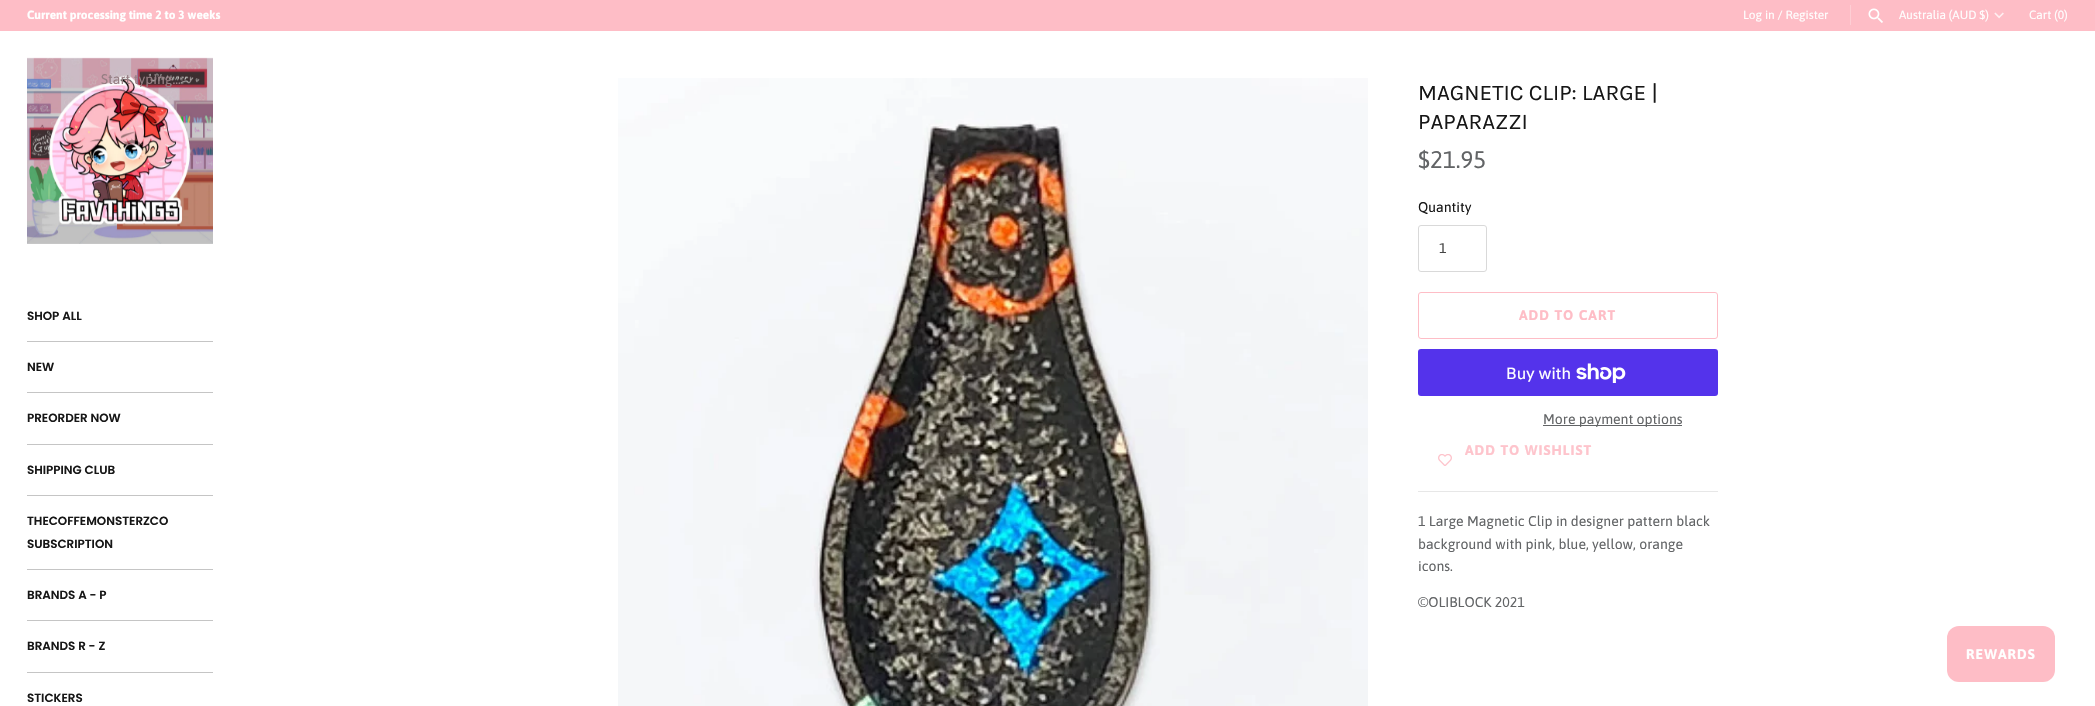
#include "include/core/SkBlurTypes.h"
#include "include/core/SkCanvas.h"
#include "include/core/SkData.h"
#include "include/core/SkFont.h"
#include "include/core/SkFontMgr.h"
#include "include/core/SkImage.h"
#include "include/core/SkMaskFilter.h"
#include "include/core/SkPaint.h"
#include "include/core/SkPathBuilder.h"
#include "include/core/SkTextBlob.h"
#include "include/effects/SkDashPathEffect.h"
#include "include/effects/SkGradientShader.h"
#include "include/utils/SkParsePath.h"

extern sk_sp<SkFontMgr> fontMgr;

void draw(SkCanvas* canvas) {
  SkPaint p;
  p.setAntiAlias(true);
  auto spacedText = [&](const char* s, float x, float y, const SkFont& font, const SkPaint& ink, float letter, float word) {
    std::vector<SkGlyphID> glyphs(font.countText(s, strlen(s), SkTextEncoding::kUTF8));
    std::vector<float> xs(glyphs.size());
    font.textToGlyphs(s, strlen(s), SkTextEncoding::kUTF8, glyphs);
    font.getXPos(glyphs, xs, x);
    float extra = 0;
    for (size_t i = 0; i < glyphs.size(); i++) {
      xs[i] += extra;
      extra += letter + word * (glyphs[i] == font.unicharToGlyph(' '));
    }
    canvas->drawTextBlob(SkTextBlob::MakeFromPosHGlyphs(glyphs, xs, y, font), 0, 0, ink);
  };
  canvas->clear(SK_ColorWHITE);
  p.setColor(SkColorSetRGB(254, 189, 198));
  canvas->drawRect(SkRect::MakeLTRB(0, 0, 2095, 31), p);
  p.setColor(SkColorSetRGB(254, 206, 212));
  canvas->drawRect(SkRect::MakeLTRB(1850, 5, 1851, 25), p);
  canvas->drawImageRect(SkImages::DeferredFromEncodedData(SkData::MakeFromFileName("images/1.png")), SkRect::MakeLTRB(1868, 8, 1883, 23), SkSamplingOptions());
  canvas->drawImageRect(SkImages::DeferredFromEncodedData(SkData::MakeFromFileName("images/2.png")), SkRect::MakeLTRB(1994, 12, 2004, 19), SkSamplingOptions());
  canvas->drawImageRect(SkImages::DeferredFromEncodedData(SkData::MakeFromFileName("images/3.png")), SkRect::MakeLTRB(27, 57, 213, 244), SkSamplingOptions());
  p.setColor(SkColorSetRGB(197, 197, 197));
  canvas->drawRect(SkRect::MakeLTRB(27, 341, 213, 342), p);
  canvas->drawRect(SkRect::MakeLTRB(27, 392, 213, 393), p);
  canvas->drawRect(SkRect::MakeLTRB(27, 444, 213, 445), p);
  canvas->drawRect(SkRect::MakeLTRB(27, 495, 213, 496), p);
  canvas->drawRect(SkRect::MakeLTRB(27, 569, 213, 570), p);
  canvas->drawRect(SkRect::MakeLTRB(27, 620, 213, 621), p);
  canvas->drawRect(SkRect::MakeLTRB(27, 672, 213, 673), p);
  canvas->drawImageRect(SkImages::DeferredFromEncodedData(SkData::MakeFromFileName("images/4.png")), SkRect::MakeLTRB(618, 78, 1368, 706), SkSamplingOptions());
  p.setStyle(SkPaint::kStroke_Style);
  p.setStrokeWidth(1);
  p.setColor(SkColorSetRGB(217, 217, 217));
  canvas->drawRoundRect(SkRect::MakeLTRB(1418.5f, 225.5f, 1486.5f, 271.5f), 2.5f, 2.5f, p);
  p.setColor(SkColorSetRGB(254, 189, 198));
  canvas->drawRoundRect(SkRect::MakeLTRB(1418.5f, 292.5f, 1717.5f, 338.5f), 2.5f, 2.5f, p);
  p.setStyle(SkPaint::kFill_Style);
  p.setColor(SkColorSetRGB(84, 51, 235));
  canvas->drawRoundRect(SkRect::MakeLTRB(1418, 349, 1718, 396), 3, 3, p);
  canvas->drawImageRect(SkImages::DeferredFromEncodedData(SkData::MakeFromFileName("images/5.png")), SkRect::MakeLTRB(1576, 363, 1626, 383), SkSamplingOptions());
  p.setColor(SkColorSetRGB(98, 100, 102));
  canvas->drawRect(SkRect::MakeLTRB(1543, 425, 1682, 426), p);
  canvas->drawImageRect(SkImages::DeferredFromEncodedData(SkData::MakeFromFileName("images/6.png")), SkRect::MakeLTRB(1438, 454, 1452, 466), SkSamplingOptions());
  p.setColor(SkColorSetRGB(231, 231, 231));
  canvas->drawRect(SkRect::MakeLTRB(1418, 491, 1718, 492), p);
  p.setColor(SkColorSetRGB(254, 189, 198));
  canvas->drawRoundRect(SkRect::MakeLTRB(1947, 626, 2055, 682), 12, 12, p);
  SkFont font1(fontMgr->matchFamilyStyle("Asap", SkFontStyle::Bold()), 11.9f);
  font1.setSubpixel(true);
  p.setColor(SK_ColorWHITE);
  canvas->drawString("Current processing time 2 to 3 weeks", 27, 19, font1, p);
  SkFont font2(fontMgr->matchFamilyStyle("Asap", SkFontStyle::Normal()), 11.9f);
  font2.setSubpixel(true);
  canvas->drawString("Log in / Register", 1743, 19, font2, p);
  canvas->drawString("Australia (AUD $)", 1899, 19, font2, p);
  canvas->drawString("Cart (0)", 2029, 19, font2, p);
  SkFont font3(fontMgr->matchFamilyStyle("Asap", SkFontStyle::Normal()), 14);
  font3.setSubpixel(true);
  p.setColor(SkColorSetRGB(150, 126, 131));
  canvas->drawString("Start typing...", 101, 84, font3, p);
  SkFont font4(fontMgr->matchFamilyStyle("Poppins", SkFontStyle(600, SkFontStyle::kNormal_Width, SkFontStyle::kUpright_Slant)), 11.9f);
  font4.setSubpixel(true);
  p.setColor(SkColorSetRGB(23, 23, 23));
  canvas->drawString("SHOP ALL", 27, 320, font4, p);
  canvas->drawString("NEW", 27, 371, font4, p);
  canvas->drawString("PREORDER NOW", 27, 422, font4, p);
  canvas->drawString("SHIPPING CLUB", 27, 474, font4, p);
  canvas->drawString("THECOFFEMONSTERZCO", 27, 525, font4, p);
  canvas->drawString("SUBSCRIPTION", 27, 548, font4, p);
  canvas->drawString("BRANDS A - P", 27, 599, font4, p);
  canvas->drawString("BRANDS R - Z", 27, 650, font4, p);
  canvas->drawString("STICKERS", 27, 702, font4, p);
  SkFont font5(fontMgr->matchFamilyStyle("Karla", SkFontStyle::Normal()), 22.4f);
  font5.setSubpixel(true);
  canvas->drawString("MAGNETIC CLIP: LARGE |", 1418, 100, font5, p);
  canvas->drawString("PAPARAZZI", 1418, 129, font5, p);
  SkFont font6(fontMgr->matchFamilyStyle("Asap", SkFontStyle::Normal()), 24);
  font6.setSubpixel(true);
  p.setColor(SkColorSetRGB(98, 100, 102));
  canvas->drawString("$21.95", 1418, 168, font6, p);
  p.setColor(SkColorSetRGB(23, 23, 23));
  canvas->drawString("Quantity", 1418, 212, font3, p);
  p.setColor(SkColorSetRGB(68, 68, 68));
  canvas->drawString("1", 1439, 253, font3, p);
  SkFont font7(fontMgr->matchFamilyStyle("Asap", SkFontStyle::Bold()), 14);
  font7.setSubpixel(true);
  p.setColor(SkColorSetRGB(254, 189, 198));
  spacedText("ADD TO CART", 1519, 320, font7, p, 1, 0);
  SkFont font8(fontMgr->matchFamilyStyle("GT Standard", SkFontStyle::Normal()), 16);
  font8.setSubpixel(true);
  p.setColor(SK_ColorWHITE);
  canvas->drawString("Buy with", 1506, 379, font8, p);
  p.setColor(SkColorSetRGB(98, 100, 102));
  canvas->drawString("More payment options", 1543, 424, font3, p);
  p.setColor(SkColorSetRGB(254, 196, 204));
  spacedText("ADD TO WISHLIST", 1465, 455, font7, p, 1, 0);
  p.setColor(SkColorSetRGB(98, 100, 102));
  canvas->drawString("1 Large Magnetic Clip in designer pattern black", 1418, 526, font3, p);
  canvas->drawString("background with pink, blue, yellow, orange", 1418, 549, font3, p);
  canvas->drawString("icons.", 1418, 571, font3, p);
  canvas->drawString("©OLIBLOCK 2021", 1418, 607, font3, p);
  p.setColor(SK_ColorWHITE);
  spacedText("REWARDS", 1966, 659, font7, p, 1, 0);
}
